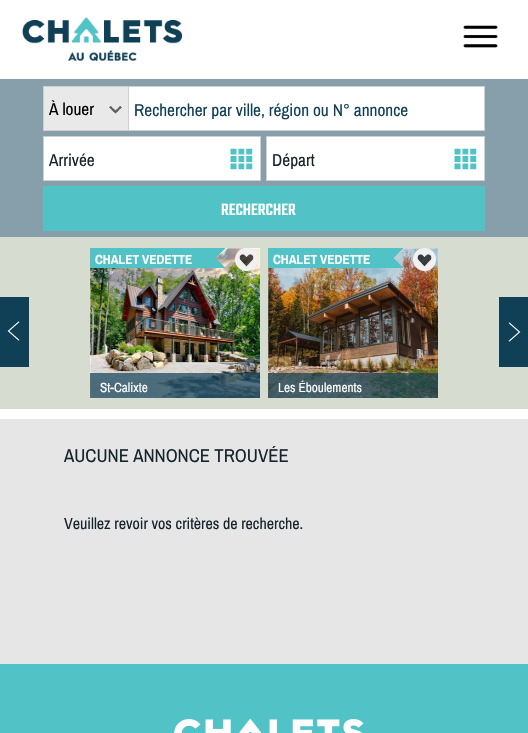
#include "include/core/SkBlurTypes.h"
#include "include/core/SkCanvas.h"
#include "include/core/SkData.h"
#include "include/core/SkFont.h"
#include "include/core/SkFontMgr.h"
#include "include/core/SkImage.h"
#include "include/core/SkMaskFilter.h"
#include "include/core/SkPaint.h"
#include "include/core/SkPathBuilder.h"
#include "include/core/SkTextBlob.h"
#include "include/effects/SkDashPathEffect.h"
#include "include/effects/SkGradientShader.h"
#include "include/utils/SkParsePath.h"

extern sk_sp<SkFontMgr> fontMgr;

void draw(SkCanvas* canvas) {
  SkPaint p;
  p.setAntiAlias(true);
  canvas->clear(SK_ColorWHITE);
  canvas->drawImageRect(SkImages::DeferredFromEncodedData(SkData::MakeFromFileName("images/1.png")), SkRect::MakeLTRB(22, 17, 182, 61), SkSamplingOptions());
  canvas->drawImageRect(SkImages::DeferredFromEncodedData(SkData::MakeFromFileName("images/2.png")), SkRect::MakeLTRB(463, 25, 498, 48), SkSamplingOptions());
  p.setColor(SkColorSetRGB(135, 159, 171));
  canvas->drawRect(SkRect::MakeLTRB(0, 79, 528, 237), p);
  p.setColor(SkColorSetRGB(233, 233, 233));
  canvas->drawRect(SkRect::MakeLTRB(44, 87, 128, 130), p);
  canvas->drawImageRect(SkImages::DeferredFromEncodedData(SkData::MakeFromFileName("images/3.png")), SkRect::MakeLTRB(109, 106, 122, 114), SkSamplingOptions());
  p.setColor(SkColorSetRGB(207, 207, 207));
  canvas->drawRect(SkRect::MakeLTRB(43, 86, 128, 87), p);
  canvas->drawRect(SkRect::MakeLTRB(43, 130, 128, 131), p);
  canvas->drawRect(SkRect::MakeLTRB(43, 86, 44, 131), p);
  p.setColor(SK_ColorWHITE);
  canvas->drawRect(SkRect::MakeLTRB(128.5f, 86.5f, 484.5f, 130.5f), p);
  p.setStyle(SkPaint::kStroke_Style);
  p.setStrokeWidth(1);
  p.setColor(SkColorSetRGB(207, 207, 207));
  canvas->drawRect(SkRect::MakeLTRB(128.5f, 86.5f, 484.5f, 130.5f), p);
  p.setStyle(SkPaint::kFill_Style);
  p.setColor(SK_ColorWHITE);
  canvas->drawRect(SkRect::MakeLTRB(44, 137, 260, 180), p);
  canvas->drawImageRect(SkImages::DeferredFromEncodedData(SkData::MakeFromFileName("images/4.png")), SkRect::MakeLTRB(230, 148, 253, 170), SkSamplingOptions());
  p.setStyle(SkPaint::kStroke_Style);
  p.setColor(SkColorSetRGB(207, 207, 207));
  canvas->drawRect(SkRect::MakeLTRB(43.5f, 136.5f, 260.5f, 180.5f), p);
  p.setStyle(SkPaint::kFill_Style);
  p.setColor(SK_ColorWHITE);
  canvas->drawRect(SkRect::MakeLTRB(267, 137, 484, 180), p);
  canvas->drawImageRect(SkImages::DeferredFromEncodedData(SkData::MakeFromFileName("images/4.png")), SkRect::MakeLTRB(454, 148, 477, 170), SkSamplingOptions());
  p.setStyle(SkPaint::kStroke_Style);
  p.setColor(SkColorSetRGB(207, 207, 207));
  canvas->drawRect(SkRect::MakeLTRB(266.5f, 136.5f, 484.5f, 180.5f), p);
  p.setStyle(SkPaint::kFill_Style);
  p.setColor(SkColorSetRGB(81, 194, 197));
  canvas->drawRect(SkRect::MakeLTRB(43, 186, 485, 231), p);
  p.setColor(SkColorSetRGB(214, 220, 208));
  canvas->drawRect(SkRect::MakeLTRB(0, 237, 528, 409), p);
  canvas->drawImageRect(SkImages::DeferredFromEncodedData(SkData::MakeFromFileName("images/5.png")), SkRect::MakeLTRB(0, 297, 29, 367), SkSamplingOptions());
  canvas->drawImageRect(SkImages::DeferredFromEncodedData(SkData::MakeFromFileName("images/6.png")), SkRect::MakeLTRB(90, 248, 260, 398), SkSamplingOptions());
  canvas->drawImageRect(SkImages::DeferredFromEncodedData(SkData::MakeFromFileName("images/7.png")), SkRect::MakeLTRB(90, 248, 225, 268), SkSamplingOptions());
  canvas->drawImageRect(SkImages::DeferredFromEncodedData(SkData::MakeFromFileName("images/8.png")), SkRect::MakeLTRB(235, 248, 258, 271), SkSamplingOptions());
  p.setColor(SkColorSetARGB(179, 15, 63, 86));
  canvas->drawRect(SkRect::MakeLTRB(90, 373, 260, 398), p);
  canvas->drawImageRect(SkImages::DeferredFromEncodedData(SkData::MakeFromFileName("images/9.png")), SkRect::MakeLTRB(268, 248, 438, 398), SkSamplingOptions());
  canvas->drawImageRect(SkImages::DeferredFromEncodedData(SkData::MakeFromFileName("images/10.png")), SkRect::MakeLTRB(268, 248, 403, 268), SkSamplingOptions());
  canvas->drawImageRect(SkImages::DeferredFromEncodedData(SkData::MakeFromFileName("images/11.png")), SkRect::MakeLTRB(413, 248, 436, 271), SkSamplingOptions());
  canvas->drawRect(SkRect::MakeLTRB(268, 373, 438, 398), p);
  canvas->drawImageRect(SkImages::DeferredFromEncodedData(SkData::MakeFromFileName("images/12.png")), SkRect::MakeLTRB(499, 297, 528, 367), SkSamplingOptions());
  p.setColor(SkColorSetRGB(230, 230, 230));
  canvas->drawRect(SkRect::MakeLTRB(0, 419, 528, 664), p);
  p.setColor(SkColorSetRGB(81, 194, 198));
  canvas->drawRect(SkRect::MakeLTRB(0, 664, 528, 733), p);
  canvas->drawImageRect(SkImages::DeferredFromEncodedData(SkData::MakeFromFileName("images/13.png")), SkRect::MakeLTRB(174, 719, 364, 733), SkSamplingOptions());
  SkFont font1(fontMgr->matchFamilyStyle("Archivo Narrow", SkFontStyle::Normal()), 17.3f);
  font1.setSubpixel(true);
  p.setColor(SK_ColorBLACK);
  canvas->drawString("À louer", 49, 115, font1, p);
  p.setColor(SkColorSetRGB(14, 64, 87));
  canvas->drawString("Rechercher par ville, région ou N° annonce", 134, 116, font1, p);
  p.setColor(SkColorSetRGB(22, 36, 44));
  canvas->drawString("Arrivée", 49, 166, font1, p);
  canvas->drawString("Départ", 272, 166, font1, p);
  SkFont font2(fontMgr->matchFamilyStyle("Teko", SkFontStyle(500, SkFontStyle::kNormal_Width, SkFontStyle::kUpright_Slant)), 18);
  font2.setSubpixel(true);
  p.setColor(SK_ColorWHITE);
  canvas->drawString("RECHERCHER", 221, 215, font2, p);
  SkFont font3(fontMgr->matchFamilyStyle("Archivo Narrow", SkFontStyle::Bold()), 13.25f);
  font3.setSubpixel(true);
  canvas->drawString("CHALET VEDETTE", 95, 264, font3, p);
  SkFont font4(fontMgr->matchFamilyStyle("Archivo Narrow", SkFontStyle::Normal()), 13.25f);
  font4.setSubpixel(true);
  canvas->drawString("St-Calixte", 100, 392, font4, p);
  canvas->drawString("CHALET VEDETTE", 273, 264, font3, p);
  canvas->drawString("Les Éboulements", 278, 392, font4, p);
  SkFont font5(fontMgr->matchFamilyStyle("Archivo Narrow", SkFontStyle::Normal()), 18.75f);
  font5.setSubpixel(true);
  p.setColor(SkColorSetRGB(22, 36, 44));
  canvas->drawString("AUCUNE ANNONCE TROUVÉE", 64, 462, font5, p);
  SkFont font6(fontMgr->matchFamilyStyle("Archivo Narrow", SkFontStyle::Normal()), 16);
  font6.setSubpixel(true);
  canvas->drawString("Veuillez revoir vos critères de recherche.", 64, 529, font6, p);
}
